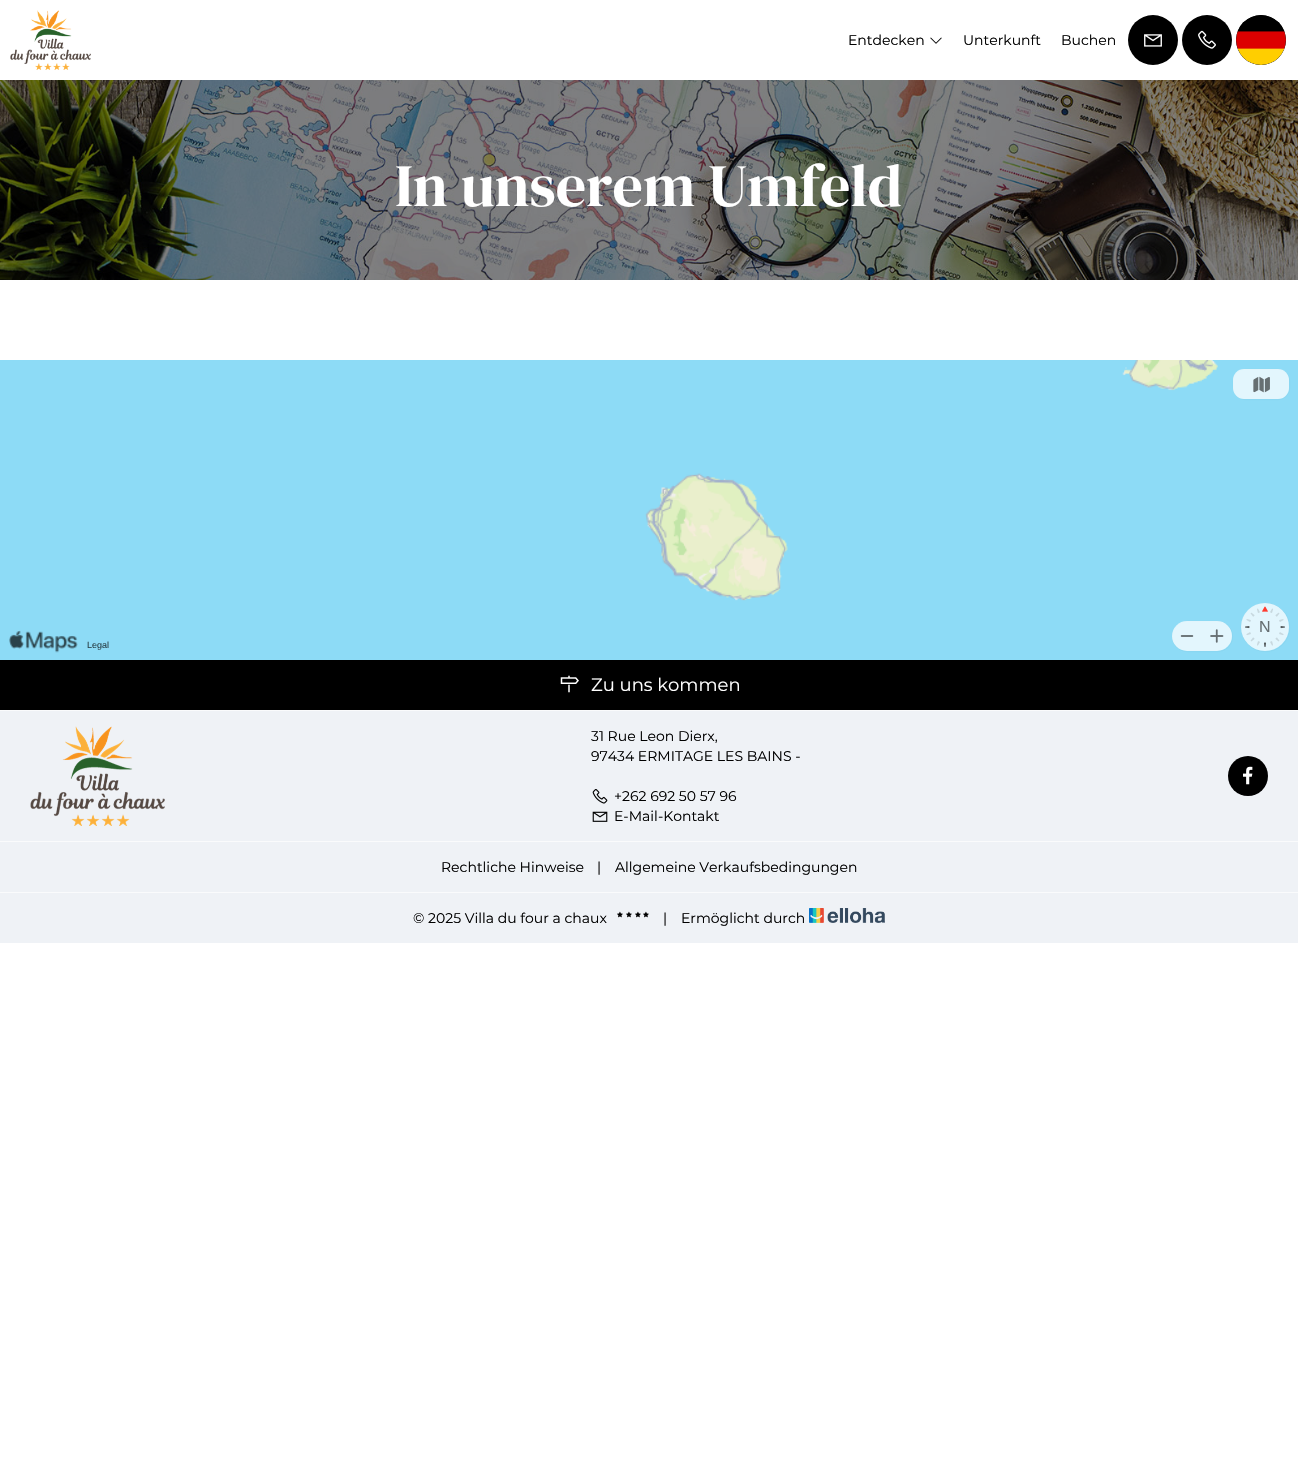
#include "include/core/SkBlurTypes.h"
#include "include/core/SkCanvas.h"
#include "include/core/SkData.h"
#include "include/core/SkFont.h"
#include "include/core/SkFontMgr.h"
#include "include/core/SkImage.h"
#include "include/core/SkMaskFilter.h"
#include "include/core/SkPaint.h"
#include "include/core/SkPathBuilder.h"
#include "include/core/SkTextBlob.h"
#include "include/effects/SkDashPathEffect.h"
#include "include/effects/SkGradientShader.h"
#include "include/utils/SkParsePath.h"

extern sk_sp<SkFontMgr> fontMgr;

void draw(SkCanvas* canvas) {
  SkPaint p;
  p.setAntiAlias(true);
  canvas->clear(SK_ColorWHITE);
  canvas->drawImageRect(SkImages::DeferredFromEncodedData(SkData::MakeFromFileName("images/1.png")), SkRect::MakeLTRB(10, 10, 91, 70), SkSamplingOptions());
  canvas->drawImageRect(SkImages::DeferredFromEncodedData(SkData::MakeFromFileName("images/2.png")), SkRect::MakeLTRB(930, 37, 942, 44), SkSamplingOptions());
  p.setColor(SK_ColorBLACK);
  canvas->drawCircle(1153, 40, 25, p);
  canvas->drawImageRect(SkImages::DeferredFromEncodedData(SkData::MakeFromFileName("images/3.png")), SkRect::MakeLTRB(1144, 34, 1162, 47), SkSamplingOptions());
  canvas->drawCircle(1207, 40, 25, p);
  canvas->drawImageRect(SkImages::DeferredFromEncodedData(SkData::MakeFromFileName("images/4.png")), SkRect::MakeLTRB(1198, 30, 1216, 49), SkSamplingOptions());
  canvas->drawCircle(1261, 40, 25, p);
  canvas->drawImageRect(SkImages::DeferredFromEncodedData(SkData::MakeFromFileName("images/5.png")), SkRect::MakeLTRB(1236, 15, 1286, 65), SkSamplingOptions());
  canvas->drawImageRect(SkImages::DeferredFromEncodedData(SkData::MakeFromFileName("images/6.png")), SkRect::MakeLTRB(0, 80, 1298, 280), SkSamplingOptions());
  canvas->drawImageRect(SkImages::DeferredFromEncodedData(SkData::MakeFromFileName("images/7.png")), SkRect::MakeLTRB(0, 360, 1298, 660), SkSamplingOptions());
  canvas->drawImageRect(SkImages::DeferredFromEncodedData(SkData::MakeFromFileName("images/8.png")), SkRect::MakeLTRB(373, 360, 1219, 601), SkSamplingOptions());
  p.setStyle(SkPaint::kStroke_Style);
  p.setStrokeWidth(0.5f);
  p.setColor(SkColorSetRGB(134, 208, 234));
  canvas->drawRoundRect(SkRect::MakeLTRB(1233.25f, 369.25f, 1289.75f, 399.75f), 11.75f, 11.75f, p);
  p.setStyle(SkPaint::kFill_Style);
  p.setColor(SkColorSetARGB(191, 255, 255, 255));
  canvas->drawRoundRect(SkRect::MakeLTRB(1233, 369, 1289, 399), 11, 11, p);
  canvas->drawImageRect(SkImages::DeferredFromEncodedData(SkData::MakeFromFileName("images/9.png")), SkRect::MakeLTRB(1253, 376, 1270, 393), SkSamplingOptions());
  p.setStyle(SkPaint::kStroke_Style);
  p.setColor(SkColorSetRGB(134, 208, 234));
  canvas->drawRoundRect(SkRect::MakeLTRB(1172.25f, 621.25f, 1232.75f, 651.75f), 15.25f, 15.25f, p);
  p.setStyle(SkPaint::kFill_Style);
  p.setColor(SkColorSetARGB(191, 255, 255, 255));
  canvas->drawRoundRect(SkRect::MakeLTRB(1172, 621, 1232, 651), 15, 15, p);
  canvas->drawImageRect(SkImages::DeferredFromEncodedData(SkData::MakeFromFileName("images/10.png")), SkRect::MakeLTRB(1180, 635, 1194, 637), SkSamplingOptions());
  canvas->drawImageRect(SkImages::DeferredFromEncodedData(SkData::MakeFromFileName("images/11.png")), SkRect::MakeLTRB(1210, 629, 1224, 643), SkSamplingOptions());
  p.setStyle(SkPaint::kStroke_Style);
  p.setColor(SkColorSetRGB(134, 208, 234));
  canvas->drawCircle(1265.5f, 627.5f, 24.25f, p);
  p.setStyle(SkPaint::kFill_Style);
  p.setColor(SkColorSetARGB(191, 255, 255, 255));
  canvas->drawCircle(1265, 627, 24, p);
  canvas->drawImageRect(SkImages::DeferredFromEncodedData(SkData::MakeFromFileName("images/12.png")), SkRect::MakeLTRB(1245, 606, 1285, 647), SkSamplingOptions());
  canvas->drawImageRect(SkImages::DeferredFromEncodedData(SkData::MakeFromFileName("images/13.png")), SkRect::MakeLTRB(9, 630, 78, 653), SkSamplingOptions());
  p.setColor(SK_ColorBLACK);
  canvas->drawRect(SkRect::MakeLTRB(0, 660, 1298, 710), p);
  canvas->drawImageRect(SkImages::DeferredFromEncodedData(SkData::MakeFromFileName("images/14.png")), SkRect::MakeLTRB(560, 675, 579, 693), SkSamplingOptions());
  p.setColor(SkColorSetRGB(239, 242, 246));
  canvas->drawRect(SkRect::MakeLTRB(0, 711, 1298, 841), p);
  p.setColor(SkColorSetRGB(250, 251, 252));
  canvas->drawRect(SkRect::MakeLTRB(0, 710, 1298, 711), p);
  canvas->drawRect(SkRect::MakeLTRB(0, 841, 1298, 842), p);
  canvas->drawImageRect(SkImages::DeferredFromEncodedData(SkData::MakeFromFileName("images/15.png")), SkRect::MakeLTRB(30, 726, 165, 826), SkSamplingOptions());
  canvas->drawImageRect(SkImages::DeferredFromEncodedData(SkData::MakeFromFileName("images/16.png")), SkRect::MakeLTRB(592, 789, 608, 804), SkSamplingOptions());
  canvas->drawImageRect(SkImages::DeferredFromEncodedData(SkData::MakeFromFileName("images/17.png")), SkRect::MakeLTRB(592, 811, 608, 822), SkSamplingOptions());
  p.setColor(SK_ColorBLACK);
  canvas->drawCircle(1248, 776, 20, p);
  canvas->drawImageRect(SkImages::DeferredFromEncodedData(SkData::MakeFromFileName("images/18.png")), SkRect::MakeLTRB(1243, 766, 1253, 785), SkSamplingOptions());
  p.setColor(SkColorSetRGB(239, 242, 246));
  canvas->drawRect(SkRect::MakeLTRB(0, 842, 1298, 892), p);
  p.setColor(SkColorSetRGB(250, 251, 252));
  canvas->drawRect(SkRect::MakeLTRB(0, 892, 1298, 893), p);
  p.setColor(SkColorSetRGB(239, 242, 246));
  canvas->drawRect(SkRect::MakeLTRB(0, 893, 1298, 943), p);
  canvas->drawImageRect(SkImages::DeferredFromEncodedData(SkData::MakeFromFileName("images/19.png")), SkRect::MakeLTRB(617, 911, 623, 918), SkSamplingOptions());
  canvas->drawImageRect(SkImages::DeferredFromEncodedData(SkData::MakeFromFileName("images/19.png")), SkRect::MakeLTRB(626, 911, 632, 918), SkSamplingOptions());
  canvas->drawImageRect(SkImages::DeferredFromEncodedData(SkData::MakeFromFileName("images/19.png")), SkRect::MakeLTRB(635, 911, 641, 918), SkSamplingOptions());
  canvas->drawImageRect(SkImages::DeferredFromEncodedData(SkData::MakeFromFileName("images/19.png")), SkRect::MakeLTRB(643, 911, 649, 918), SkSamplingOptions());
  canvas->drawImageRect(SkImages::DeferredFromEncodedData(SkData::MakeFromFileName("images/20.png")), SkRect::MakeLTRB(809, 908, 885, 923), SkSamplingOptions());
  SkFont font1(fontMgr->matchFamilyStyle("Montserrat", SkFontStyle(100, SkFontStyle::kNormal_Width, SkFontStyle::kUpright_Slant)), 14);
  font1.setSubpixel(true);
  p.setColor(SK_ColorBLACK);
  canvas->drawString("Entdecken", 848, 45, font1, p);
  canvas->drawString("Unterkunft", 963, 45, font1, p);
  canvas->drawString("Buchen", 1061, 45, font1, p);
  SkFont font2(fontMgr->matchFamilyStyle("DM Serif Display", SkFontStyle::Normal()), 60);
  font2.setSubpixel(true);
  p.setColor(SK_ColorWHITE);
  canvas->drawString("In unserem Umfeld", 395, 206, font2, p);
  SkFont font3(fontMgr->matchFamilyStyle("Liberation Sans", SkFontStyle::Normal()), 16);
  font3.setSubpixel(true);
  p.setColor(SkColorSetRGB(102, 111, 114));
  canvas->drawString("N", 1259, 632, font3, p);
  SkFont font4(fontMgr->matchFamilyStyle("Liberation Sans", SkFontStyle::Normal()), 9);
  font4.setSubpixel(true);
  p.setColor(SkColorSetRGB(42, 66, 74));
  canvas->drawString("Legal", 87, 648, font4, p);
  SkFont font5(fontMgr->matchFamilyStyle("Montserrat", SkFontStyle(100, SkFontStyle::kNormal_Width, SkFontStyle::kUpright_Slant)), 18);
  font5.setSubpixel(true);
  p.setColor(SK_ColorWHITE);
  canvas->drawString("Zu uns kommen", 591, 691, font5, p);
  p.setColor(SK_ColorBLACK);
  canvas->drawString("31 Rue Leon Dierx,", 591, 741, font1, p);
  canvas->drawString("97434 ERMITAGE LES BAINS -", 591, 761, font1, p);
  canvas->drawString("+262 692 50 57 96", 614, 801, font1, p);
  canvas->drawString("E-Mail-Kontakt", 614, 821, font1, p);
  canvas->drawString("Rechtliche Hinweise", 441, 872, font1, p);
  canvas->drawString("|", 597, 872, font1, p);
  canvas->drawString("Allgemeine Verkaufsbedingungen", 615, 872, font1, p);
  canvas->drawString("© 2025 Villa du four a chaux", 413, 923, font1, p);
  canvas->drawString("|", 663, 923, font1, p);
  canvas->drawString("Ermöglicht durch", 681, 923, font1, p);
}
